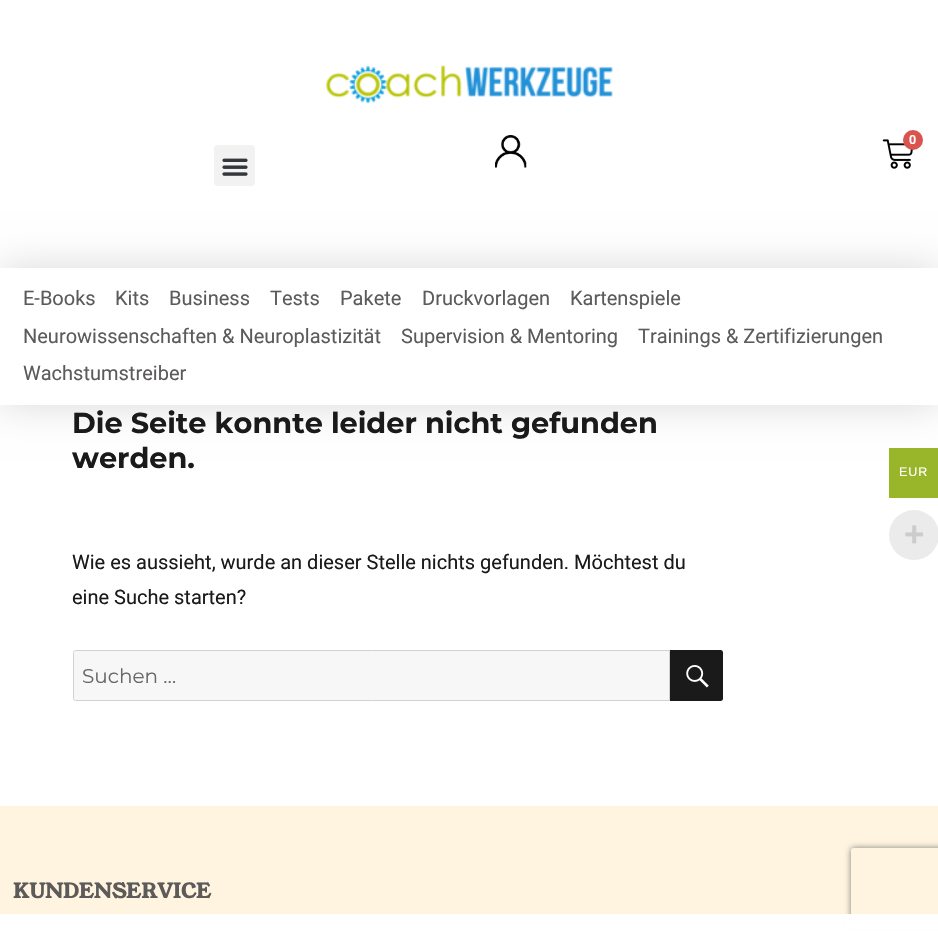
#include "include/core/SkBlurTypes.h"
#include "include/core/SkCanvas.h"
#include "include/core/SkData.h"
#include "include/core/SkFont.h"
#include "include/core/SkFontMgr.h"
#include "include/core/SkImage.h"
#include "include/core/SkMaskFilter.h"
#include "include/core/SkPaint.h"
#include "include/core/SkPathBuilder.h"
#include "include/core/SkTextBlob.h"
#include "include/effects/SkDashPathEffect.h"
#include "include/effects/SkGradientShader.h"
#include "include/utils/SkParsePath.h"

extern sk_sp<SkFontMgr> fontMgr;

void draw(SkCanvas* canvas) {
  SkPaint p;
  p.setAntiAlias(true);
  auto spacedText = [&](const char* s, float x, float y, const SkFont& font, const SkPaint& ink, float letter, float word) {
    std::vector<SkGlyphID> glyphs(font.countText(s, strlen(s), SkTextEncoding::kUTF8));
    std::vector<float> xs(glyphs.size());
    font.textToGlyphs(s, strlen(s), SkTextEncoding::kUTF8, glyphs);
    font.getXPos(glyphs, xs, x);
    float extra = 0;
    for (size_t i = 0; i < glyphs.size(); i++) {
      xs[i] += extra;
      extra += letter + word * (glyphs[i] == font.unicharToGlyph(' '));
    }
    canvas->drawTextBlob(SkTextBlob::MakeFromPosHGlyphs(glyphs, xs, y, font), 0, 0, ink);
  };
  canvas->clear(SK_ColorWHITE);
  canvas->drawImageRect(SkImages::DeferredFromEncodedData(SkData::MakeFromFileName("images/1.png")), SkRect::MakeLTRB(326, 65, 613, 104), SkSamplingOptions());
  canvas->drawImageRect(SkImages::DeferredFromEncodedData(SkData::MakeFromFileName("images/2.png")), SkRect::MakeLTRB(495, 135, 527, 168), SkSamplingOptions());
  canvas->drawImageRect(SkImages::DeferredFromEncodedData(SkData::MakeFromFileName("images/3.png")), SkRect::MakeLTRB(882, 139, 913, 169), SkSamplingOptions());
  p.setColor(SkColorSetRGB(217, 83, 79));
  canvas->drawCircle(913, 140, 10, p);
  p.setColor(SkColorSetRGB(242, 242, 242));
  canvas->drawRoundRect(SkRect::MakeLTRB(214, 145, 255, 186), 4, 4, p);
  canvas->drawImageRect(SkImages::DeferredFromEncodedData(SkData::MakeFromFileName("images/4.png")), SkRect::MakeLTRB(222, 158, 248, 176), SkSamplingOptions());
  canvas->save();
  canvas->clipPath(SkPathBuilder(SkPathFillType::kEvenOdd).moveTo(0, 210).lineTo(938, 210).lineTo(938, 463).lineTo(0, 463).close().moveTo(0, 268).lineTo(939, 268).lineTo(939, 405).lineTo(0, 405).close().detach(), true);
  p.setColor(SkColorSetARGB(38, 0, 0, 0));
  p.setMaskFilter(SkMaskFilter::MakeBlur(kNormal_SkBlurStyle, 19));
  canvas->drawRect(SkRect::MakeLTRB(0, 268, 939, 405), p);
  p.setMaskFilter(nullptr);
  canvas->restore();
  p.setColor(SkColorSetRGB(247, 247, 247));
  canvas->drawPath(SkPathBuilder().moveTo(75.5f, 650.5f).lineTo(669.5f, 650.5f).lineTo(669.5f, 700.5f).lineTo(75.5f, 700.5f).cubicTo(74.5f, 700.5f, 73.5f, 699.5f, 73.5f, 698.5f).lineTo(73.5f, 652.5f).cubicTo(73.5f, 651.5f, 74.5f, 650.5f, 75.5f, 650.5f).close().detach(), p);
  p.setStyle(SkPaint::kStroke_Style);
  p.setStrokeWidth(1);
  p.setColor(SkColorSetRGB(209, 209, 209));
  canvas->drawPath(SkPathBuilder().moveTo(75.5f, 650.5f).lineTo(669.5f, 650.5f).lineTo(669.5f, 700.5f).lineTo(75.5f, 700.5f).cubicTo(74.5f, 700.5f, 73.5f, 699.5f, 73.5f, 698.5f).lineTo(73.5f, 652.5f).cubicTo(73.5f, 651.5f, 74.5f, 650.5f, 75.5f, 650.5f).close().detach(), p);
  p.setStyle(SkPaint::kFill_Style);
  p.setColor(SkColorSetRGB(26, 26, 26));
  canvas->drawPath(SkPathBuilder().moveTo(670, 650).lineTo(720.5f, 650).cubicTo(722, 650, 723, 651, 723, 652.5f).lineTo(723, 698.5f).cubicTo(723, 700, 722, 701, 720.5f, 701).lineTo(670, 701).close().detach(), p);
  canvas->drawImageRect(SkImages::DeferredFromEncodedData(SkData::MakeFromFileName("images/5.png")), SkRect::MakeLTRB(686, 665, 709, 688), SkSamplingOptions());
  p.setColor(SkColorSetRGB(153, 181, 41));
  canvas->drawRect(SkRect::MakeLTRB(889, 448, 938, 498), p);
  p.setColor(SkColorSetRGB(235, 235, 235));
  canvas->drawCircle(914, 535, 25, p);
  p.setColor(SkColorSetRGB(255, 244, 223));
  canvas->drawRect(SkRect::MakeLTRB(0, 806, 938, 914), p);
  canvas->save();
  canvas->clipPath(SkPathBuilder(SkPathFillType::kEvenOdd).moveTo(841, 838).lineTo(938, 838).lineTo(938, 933).lineTo(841, 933).close().moveTo(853.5f, 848).lineTo(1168.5f, 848).cubicTo(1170, 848, 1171, 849, 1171, 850.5f).lineTo(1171, 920.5f).cubicTo(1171, 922, 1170, 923, 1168.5f, 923).lineTo(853.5f, 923).cubicTo(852, 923, 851, 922, 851, 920.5f).lineTo(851, 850.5f).cubicTo(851, 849, 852, 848, 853.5f, 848).close().detach(), true);
  p.setColor(SkColorSetRGB(128, 128, 128));
  p.setMaskFilter(SkMaskFilter::MakeBlur(kNormal_SkBlurStyle, 3));
  canvas->drawRoundRect(SkRect::MakeLTRB(851, 848, 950, 923), 2.5f, 2.5f, p);
  p.setMaskFilter(nullptr);
  canvas->restore();
  p.setColor(SK_ColorWHITE);
  canvas->drawRect(SkRect::MakeLTRB(845, 914, 938, 929), p);
  SkFont font1(fontMgr->matchFamilyStyle("Roboto", SkFontStyle(600, SkFontStyle::kNormal_Width, SkFontStyle::kUpright_Slant)), 12.5f);
  font1.setSubpixel(true);
  canvas->drawString("0", 909, 144, font1, p);
  SkFont font2(fontMgr->matchFamilyStyle("Roboto", SkFontStyle::Normal()), 20);
  font2.setSubpixel(true);
  p.setColor(SkColorSetRGB(93, 91, 90));
  canvas->drawString("E-Books", 23, 305, font2, p);
  canvas->drawString("Kits", 115, 305, font2, p);
  canvas->drawString("Business", 169, 305, font2, p);
  canvas->drawString("Tests", 270, 305, font2, p);
  canvas->drawString("Pakete", 340, 305, font2, p);
  canvas->drawString("Druckvorlagen", 422, 305, font2, p);
  canvas->drawString("Kartenspiele", 570, 305, font2, p);
  canvas->drawString("Neurowissenschaften & Neuroplastizität", 23, 343, font2, p);
  canvas->drawString("Supervision & Mentoring", 401, 343, font2, p);
  canvas->drawString("Trainings & Zertifizierungen", 638, 343, font2, p);
  canvas->drawString("Wachstumstreiber", 23, 380, font2, p);
  SkFont font3(fontMgr->matchFamilyStyle("Montserrat", SkFontStyle(100, SkFontStyle::kNormal_Width, SkFontStyle::kUpright_Slant)), 28.75f);
  font3.setSubpixel(true);
  p.setColor(SkColorSetRGB(26, 26, 26));
  canvas->drawString("Die Seite konnte leider nicht gefunden", 72, 433, font3, p);
  canvas->drawString("werden.", 72, 468, font3, p);
  canvas->drawString("Wie es aussieht, wurde an dieser Stelle nichts gefunden. Möchtest du", 72, 569, font2, p);
  canvas->drawString("eine Suche starten?", 72, 604, font2, p);
  SkFont font4(fontMgr->matchFamilyStyle("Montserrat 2", SkFontStyle(100, SkFontStyle::kNormal_Width, SkFontStyle::kUpright_Slant)), 20);
  font4.setSubpixel(true);
  p.setColor(SkColorSetRGB(104, 104, 104));
  canvas->drawString("Suchen …", 82, 683, font4, p);
  SkFont font5(fontMgr->matchFamilyStyle("Liberation Sans", SkFontStyle::Normal()), 12.5f);
  font5.setSubpixel(true);
  p.setColor(SK_ColorWHITE);
  spacedText("EUR", 899, 476, font5, p, 1, 0);
  SkFont font6(fontMgr->matchFamilyStyle("Liberation Sans", SkFontStyle::Bold()), 35);
  font6.setSubpixel(true);
  p.setColor(SkColorSetRGB(204, 204, 204));
  canvas->drawString("+", 904, 546, font6, p);
  SkFont font7(fontMgr->matchFamilyStyle("Young Serif", SkFontStyle::Bold()), 20);
  font7.setSubpixel(true);
  p.setColor(SkColorSetRGB(93, 91, 90));
  canvas->drawString("KUNDENSERVICE", 13, 898, font7, p);
}
